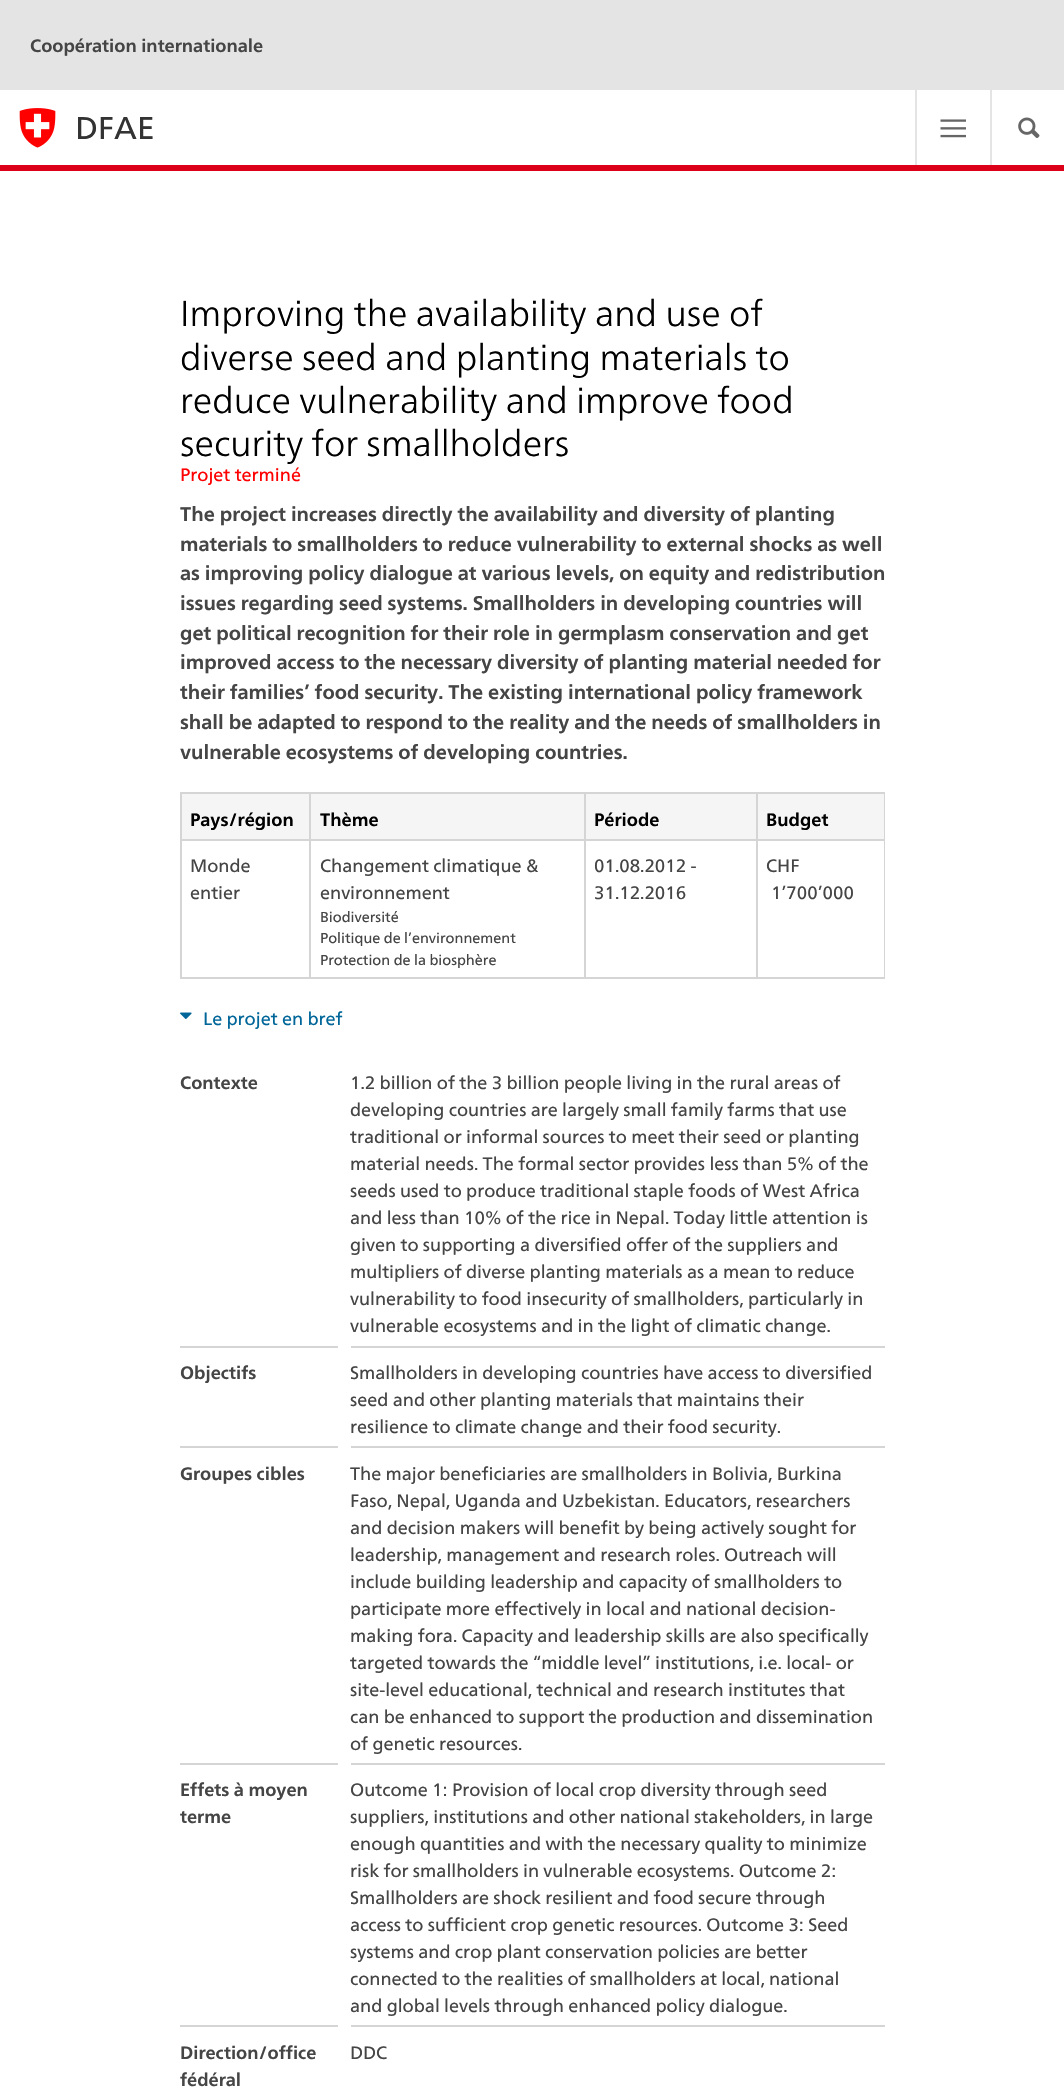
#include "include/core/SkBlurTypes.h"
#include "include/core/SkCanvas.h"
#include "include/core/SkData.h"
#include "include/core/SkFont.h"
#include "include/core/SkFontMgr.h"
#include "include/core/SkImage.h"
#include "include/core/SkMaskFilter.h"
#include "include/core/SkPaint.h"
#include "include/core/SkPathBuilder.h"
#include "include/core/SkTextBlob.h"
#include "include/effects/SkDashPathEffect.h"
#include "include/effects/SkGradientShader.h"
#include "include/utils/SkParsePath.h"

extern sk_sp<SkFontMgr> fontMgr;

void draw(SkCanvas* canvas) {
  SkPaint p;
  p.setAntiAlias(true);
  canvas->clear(SK_ColorWHITE);
  p.setColor(SkColorSetRGB(228, 228, 228));
  canvas->drawRect(SkRect::MakeLTRB(0, 0, 1064, 90), p);
  p.setColor(SkColorSetRGB(220, 0, 24));
  canvas->drawRect(SkRect::MakeLTRB(0, 165, 1064, 171), p);
  canvas->drawImageRect(SkImages::DeferredFromEncodedData(SkData::MakeFromFileName("images/1.png")), SkRect::MakeLTRB(19, 108, 56, 148), SkSamplingOptions());
  p.setColor(SkColorSetRGB(228, 228, 228));
  canvas->drawRect(SkRect::MakeLTRB(915, 90, 917, 165), p);
  canvas->drawImageRect(SkImages::DeferredFromEncodedData(SkData::MakeFromFileName("images/2.png")), SkRect::MakeLTRB(940, 119, 966, 138), SkSamplingOptions());
  canvas->drawRect(SkRect::MakeLTRB(990, 90, 992, 165), p);
  canvas->drawImageRect(SkImages::DeferredFromEncodedData(SkData::MakeFromFileName("images/3.png")), SkRect::MakeLTRB(1018, 117, 1040, 138), SkSamplingOptions());
  p.setColor(SkColorSetRGB(245, 245, 245));
  canvas->drawRect(SkRect::MakeLTRB(182, 794, 309, 839), p);
  p.setColor(SkColorSetRGB(213, 213, 213));
  canvas->drawRect(SkRect::MakeLTRB(756, 792, 885, 794), p);
  canvas->drawRect(SkRect::MakeLTRB(884, 839, 885, 978), p);
  canvas->drawRect(SkRect::MakeLTRB(884, 792, 885, 840), p);
  canvas->drawRect(SkRect::MakeLTRB(756, 977, 885, 979), p);
  canvas->drawRect(SkRect::MakeLTRB(756, 839, 758, 978), p);
  canvas->drawRect(SkRect::MakeLTRB(756, 839, 885, 841), p);
  canvas->drawRect(SkRect::MakeLTRB(756, 792, 758, 840), p);
  canvas->drawRect(SkRect::MakeLTRB(584, 792, 758, 794), p);
  canvas->drawRect(SkRect::MakeLTRB(584, 977, 758, 979), p);
  canvas->drawRect(SkRect::MakeLTRB(584, 839, 586, 978), p);
  canvas->drawRect(SkRect::MakeLTRB(584, 839, 758, 841), p);
  canvas->drawRect(SkRect::MakeLTRB(584, 792, 586, 840), p);
  canvas->drawRect(SkRect::MakeLTRB(309, 792, 585, 794), p);
  canvas->drawRect(SkRect::MakeLTRB(309, 977, 585, 979), p);
  canvas->drawRect(SkRect::MakeLTRB(309, 839, 311, 978), p);
  canvas->drawRect(SkRect::MakeLTRB(309, 839, 585, 841), p);
  canvas->drawRect(SkRect::MakeLTRB(309, 792, 311, 840), p);
  canvas->drawRect(SkRect::MakeLTRB(180, 792, 311, 794), p);
  canvas->drawRect(SkRect::MakeLTRB(180, 977, 311, 979), p);
  canvas->drawRect(SkRect::MakeLTRB(180, 839, 182, 978), p);
  canvas->drawRect(SkRect::MakeLTRB(180, 839, 311, 841), p);
  canvas->drawRect(SkRect::MakeLTRB(180, 792, 182, 840), p);
  p.setColor(SkColorSetRGB(245, 245, 245));
  canvas->drawRect(SkRect::MakeLTRB(311, 794, 584, 839), p);
  canvas->drawRect(SkRect::MakeLTRB(586, 794, 756, 839), p);
  canvas->drawRect(SkRect::MakeLTRB(758, 794, 884, 839), p);
  canvas->drawImageRect(SkImages::DeferredFromEncodedData(SkData::MakeFromFileName("images/4.png")), SkRect::MakeLTRB(180, 1012, 192, 1019), SkSamplingOptions());
  p.setColor(SkColorSetRGB(213, 213, 213));
  canvas->drawRect(SkRect::MakeLTRB(180, 1346, 885, 1348), p);
  canvas->drawRect(SkRect::MakeLTRB(180, 1446, 885, 1448), p);
  p.setColor(SK_ColorWHITE);
  canvas->drawRect(SkRect::MakeLTRB(338, 1346, 351, 1448), p);
  p.setColor(SkColorSetRGB(213, 213, 213));
  canvas->drawRect(SkRect::MakeLTRB(180, 1763, 885, 1765), p);
  p.setColor(SK_ColorWHITE);
  canvas->drawRect(SkRect::MakeLTRB(338, 1763, 351, 1765), p);
  p.setColor(SkColorSetRGB(213, 213, 213));
  canvas->drawRect(SkRect::MakeLTRB(180, 2025, 885, 2027), p);
  p.setColor(SK_ColorWHITE);
  canvas->drawRect(SkRect::MakeLTRB(338, 2025, 351, 2027), p);
  SkFont font1(fontMgr->matchFamilyStyle("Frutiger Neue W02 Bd", SkFontStyle::Bold()), 18);
  font1.setSubpixel(true);
  p.setColor(SkColorSetRGB(69, 69, 69));
  canvas->drawString("Coopération internationale", 30, 52, font1, p);
  SkFont font2(fontMgr->matchFamilyStyle("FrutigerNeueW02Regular", SkFontStyle::Normal()), 31.5f);
  font2.setSubpixel(true);
  p.setColor(SkColorSetRGB(51, 51, 51));
  canvas->drawString("DFAE", 75, 139, font2, p);
  SkFont font3(fontMgr->matchFamilyStyle("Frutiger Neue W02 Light", SkFontStyle(300, SkFontStyle::kNormal_Width, SkFontStyle::kUpright_Slant)), 36);
  font3.setSubpixel(true);
  p.setColor(SK_ColorBLACK);
  canvas->drawString("Improving the availability and use of", 180, 326, font3, p);
  canvas->drawString("diverse seed and planting materials to", 180, 370, font3, p);
  canvas->drawString("reduce vulnerability and improve food", 180, 413, font3, p);
  canvas->drawString("security for smallholders", 180, 456, font3, p);
  SkFont font4(fontMgr->matchFamilyStyle("FrutigerNeueW02Regular", SkFontStyle::Normal()), 18);
  font4.setSubpixel(true);
  p.setColor(SkColorSetRGB(255, 0, 0));
  canvas->drawString("Projet terminé", 180, 481, font4, p);
  SkFont font5(fontMgr->matchFamilyStyle("Frutiger Neue W02 Bd", SkFontStyle::Bold()), 19.8f);
  font5.setSubpixel(true);
  p.setColor(SkColorSetRGB(69, 69, 69));
  canvas->drawString("The project increases directly the availability and diversity of planting", 180, 521, font5, p);
  canvas->drawString("materials to smallholders to reduce vulnerability to external shocks as well", 180, 551, font5, p);
  canvas->drawString("as improving policy dialogue at various levels, on equity and redistribution", 180, 580, font5, p);
  canvas->drawString("issues regarding seed systems. Smallholders in developing countries will", 180, 610, font5, p);
  canvas->drawString("get political recognition for their role in germplasm conservation and get", 180, 640, font5, p);
  canvas->drawString("improved access to the necessary diversity of planting material needed for", 180, 669, font5, p);
  canvas->drawString("their families’ food security. The existing international policy framework", 180, 699, font5, p);
  canvas->drawString("shall be adapted to respond to the reality and the needs of smallholders in", 180, 729, font5, p);
  canvas->drawString("vulnerable ecosystems of developing countries.", 180, 759, font5, p);
  p.setColor(SK_ColorBLACK);
  canvas->drawString("Pays/région", 190, 826, font1, p);
  canvas->drawString("Thème", 320, 826, font1, p);
  canvas->drawString("Période", 594, 826, font1, p);
  canvas->drawString("Budget", 766, 826, font1, p);
  p.setColor(SkColorSetRGB(69, 69, 69));
  canvas->drawString("Monde", 190, 872, font4, p);
  canvas->drawString("entier", 190, 899, font4, p);
  canvas->drawString("Changement climatique &", 320, 872, font4, p);
  canvas->drawString("environnement", 320, 899, font4, p);
  SkFont font6(fontMgr->matchFamilyStyle("FrutigerNeueW02Regular", SkFontStyle::Normal()), 14.4f);
  font6.setSubpixel(true);
  canvas->drawString("Biodiversité", 320, 922, font6, p);
  canvas->drawString("Politique de l’environnement", 320, 943, font6, p);
  canvas->drawString("Protection de la biosphère", 320, 965, font6, p);
  canvas->drawString("01.08.2012 -", 594, 872, font4, p);
  canvas->drawString("31.12.2016", 594, 899, font4, p);
  canvas->drawString("CHF", 766, 872, font4, p);
  canvas->drawString("1’700’000", 771, 899, font4, p);
  p.setColor(SkColorSetRGB(0, 102, 153));
  canvas->drawString("Le projet en bref", 203, 1025, font4, p);
  p.setColor(SkColorSetRGB(69, 69, 69));
  canvas->drawString("Contexte", 180, 1089, font1, p);
  canvas->drawString("1.2 billion of the 3 billion people living in the rural areas of", 350, 1089, font4, p);
  canvas->drawString("developing countries are largely small family farms that use", 350, 1116, font4, p);
  canvas->drawString("traditional or informal sources to meet their seed or planting", 350, 1143, font4, p);
  canvas->drawString("material needs. The formal sector provides less than 5% of the", 350, 1170, font4, p);
  canvas->drawString("seeds used to produce traditional staple foods of West Africa", 350, 1197, font4, p);
  canvas->drawString("and less than 10% of the rice in Nepal. Today little attention is", 350, 1224, font4, p);
  canvas->drawString("given to supporting a diversified offer of the suppliers and", 350, 1251, font4, p);
  canvas->drawString("multipliers of diverse planting materials as a mean to reduce", 350, 1278, font4, p);
  canvas->drawString("vulnerability to food insecurity of smallholders, particularly in", 350, 1305, font4, p);
  canvas->drawString("vulnerable ecosystems and in the light of climatic change.", 350, 1332, font4, p);
  canvas->drawString("Objectifs", 180, 1379, font1, p);
  canvas->drawString("Smallholders in developing countries have access to diversified", 350, 1379, font4, p);
  canvas->drawString("seed and other planting materials that maintains their", 350, 1406, font4, p);
  canvas->drawString("resilience to climate change and their food security.", 350, 1433, font4, p);
  canvas->drawString("Groupes cibles", 180, 1480, font1, p);
  canvas->drawString("The major beneficiaries are smallholders in Bolivia, Burkina", 350, 1480, font4, p);
  canvas->drawString("Faso, Nepal, Uganda and Uzbekistan. Educators, researchers", 350, 1507, font4, p);
  canvas->drawString("and decision makers will benefit by being actively sought for", 350, 1534, font4, p);
  canvas->drawString("leadership, management and research roles. Outreach will", 350, 1561, font4, p);
  canvas->drawString("include building leadership and capacity of smallholders to", 350, 1588, font4, p);
  canvas->drawString("participate more effectively in local and national decision-", 350, 1615, font4, p);
  canvas->drawString("making fora. Capacity and leadership skills are also specifically", 350, 1642, font4, p);
  canvas->drawString("targeted towards the “middle level” institutions, i.e. local- or", 350, 1669, font4, p);
  canvas->drawString("site-level educational, technical and research institutes that", 350, 1696, font4, p);
  canvas->drawString("can be enhanced to support the production and dissemination", 350, 1723, font4, p);
  canvas->drawString("of genetic resources.", 350, 1750, font4, p);
  canvas->drawString("Effets à moyen", 180, 1796, font1, p);
  canvas->drawString("terme", 180, 1823, font1, p);
  canvas->drawString("Outcome 1: Provision of local crop diversity through seed", 350, 1796, font4, p);
  canvas->drawString("suppliers, institutions and other national stakeholders, in large", 350, 1823, font4, p);
  canvas->drawString("enough quantities and with the necessary quality to minimize", 350, 1850, font4, p);
  canvas->drawString("risk for smallholders in vulnerable ecosystems. Outcome 2:", 350, 1877, font4, p);
  canvas->drawString("Smallholders are shock resilient and food secure through", 350, 1904, font4, p);
  canvas->drawString("access to sufficient crop genetic resources. Outcome 3: Seed", 350, 1931, font4, p);
  canvas->drawString("systems and crop plant conservation policies are better", 350, 1958, font4, p);
  canvas->drawString("connected to the realities of smallholders at local, national", 350, 1985, font4, p);
  canvas->drawString("and global levels through enhanced policy dialogue.", 350, 2012, font4, p);
  canvas->drawString("Direction/office", 180, 2059, font1, p);
  canvas->drawString("fédéral", 180, 2086, font1, p);
  canvas->drawString("DDC", 350, 2059, font4, p);
}
